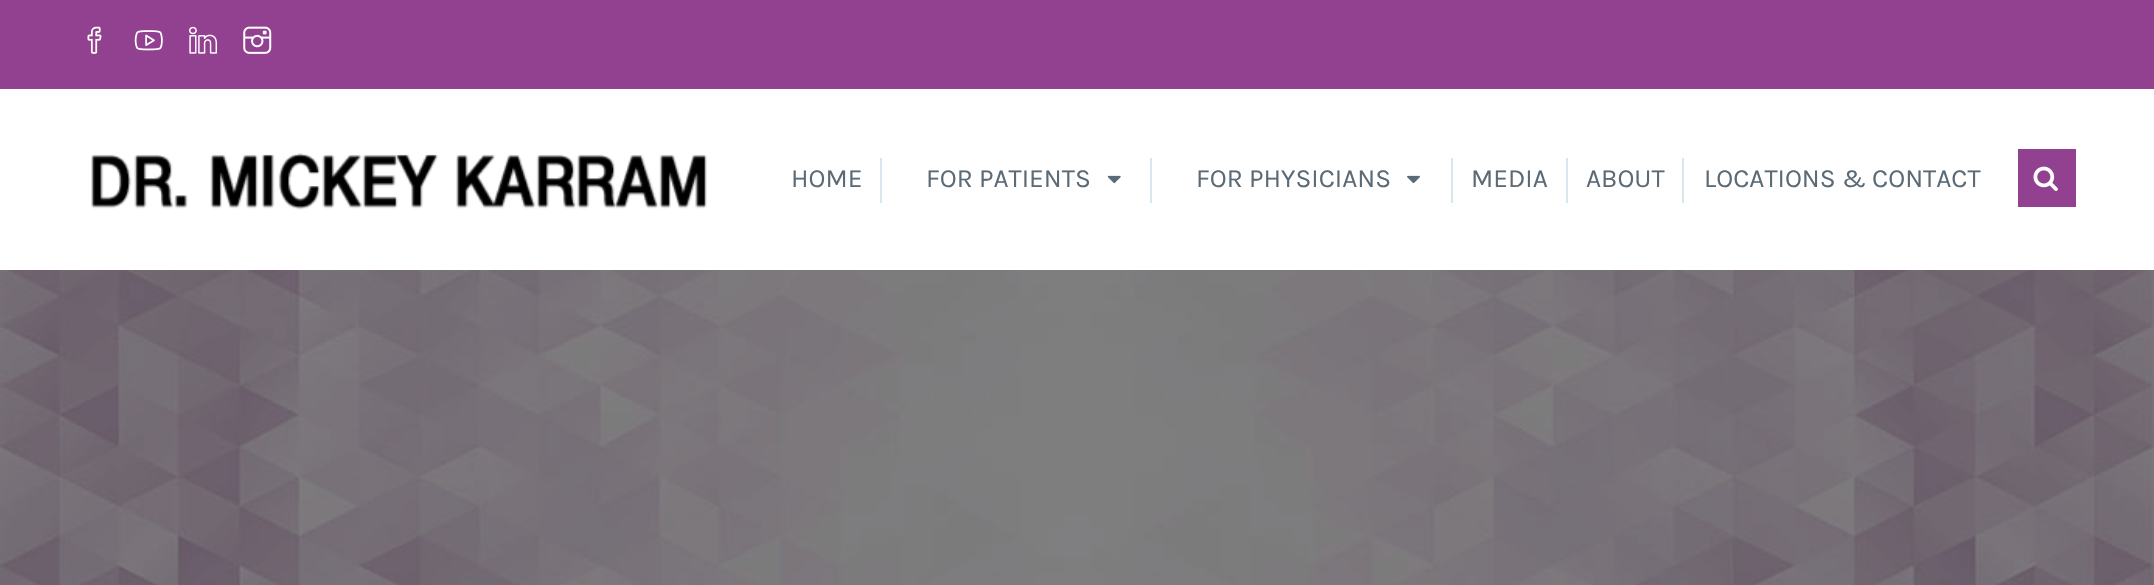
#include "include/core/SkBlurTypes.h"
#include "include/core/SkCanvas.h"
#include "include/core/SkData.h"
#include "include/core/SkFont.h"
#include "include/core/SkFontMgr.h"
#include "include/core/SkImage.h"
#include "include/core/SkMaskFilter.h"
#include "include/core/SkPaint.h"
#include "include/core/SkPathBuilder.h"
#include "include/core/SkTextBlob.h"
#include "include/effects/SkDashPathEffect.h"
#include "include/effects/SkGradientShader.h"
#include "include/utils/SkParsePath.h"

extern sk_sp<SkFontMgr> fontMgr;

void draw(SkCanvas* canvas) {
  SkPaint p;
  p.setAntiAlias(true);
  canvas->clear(SK_ColorWHITE);
  p.setColor(SkColorSetRGB(146, 65, 144));
  canvas->drawRect(SkRect::MakeLTRB(0, 0, 2154, 89), p);
  canvas->drawImageRect(SkImages::DeferredFromEncodedData(SkData::MakeFromFileName("images/1.png")), SkRect::MakeLTRB(87, 26, 102, 54), SkSamplingOptions());
  canvas->drawImageRect(SkImages::DeferredFromEncodedData(SkData::MakeFromFileName("images/2.png")), SkRect::MakeLTRB(134, 30, 163, 51), SkSamplingOptions());
  canvas->drawImageRect(SkImages::DeferredFromEncodedData(SkData::MakeFromFileName("images/3.png")), SkRect::MakeLTRB(189, 26, 217, 54), SkSamplingOptions());
  canvas->drawImageRect(SkImages::DeferredFromEncodedData(SkData::MakeFromFileName("images/4.png")), SkRect::MakeLTRB(243, 26, 272, 54), SkSamplingOptions());
  canvas->drawImageRect(SkImages::DeferredFromEncodedData(SkData::MakeFromFileName("images/5.png")), SkRect::MakeLTRB(91, 153, 707, 210), SkSamplingOptions());
  p.setColor(SkColorSetRGB(217, 230, 235));
  canvas->drawRect(SkRect::MakeLTRB(880, 158, 882, 203), p);
  canvas->drawImageRect(SkImages::DeferredFromEncodedData(SkData::MakeFromFileName("images/6.png")), SkRect::MakeLTRB(1107, 175, 1121, 184), SkSamplingOptions());
  canvas->drawRect(SkRect::MakeLTRB(1150, 158, 1152, 203), p);
  canvas->drawImageRect(SkImages::DeferredFromEncodedData(SkData::MakeFromFileName("images/7.png")), SkRect::MakeLTRB(1407, 175, 1420, 184), SkSamplingOptions());
  canvas->drawRect(SkRect::MakeLTRB(1451, 158, 1453, 203), p);
  canvas->drawRect(SkRect::MakeLTRB(1566, 158, 1568, 203), p);
  canvas->drawRect(SkRect::MakeLTRB(1682, 158, 1684, 203), p);
  p.setColor(SkColorSetRGB(146, 65, 144));
  canvas->drawRect(SkRect::MakeLTRB(2018, 149, 2076, 207), p);
  canvas->drawImageRect(SkImages::DeferredFromEncodedData(SkData::MakeFromFileName("images/8.png")), SkRect::MakeLTRB(2033, 166, 2058, 191), SkSamplingOptions());
  canvas->drawImageRect(SkImages::DeferredFromEncodedData(SkData::MakeFromFileName("images/9.png")), SkRect::MakeLTRB(0, 270, 2154, 585), SkSamplingOptions());
  SkFont font1(fontMgr->matchFamilyStyle("Karla", SkFontStyle::Normal()), 26.25f);
  font1.setSubpixel(true);
  p.setColor(SkColorSetRGB(91, 106, 117));
  canvas->drawString("HOME", 791, 187, font1, p);
  canvas->drawString("FOR PATIENTS", 926, 187, font1, p);
  canvas->drawString("FOR PHYSICIANS", 1196, 187, font1, p);
  canvas->drawString("MEDIA", 1471, 187, font1, p);
  canvas->drawString("ABOUT", 1586, 187, font1, p);
  canvas->drawString("LOCATIONS & CONTACT", 1704, 187, font1, p);
}
